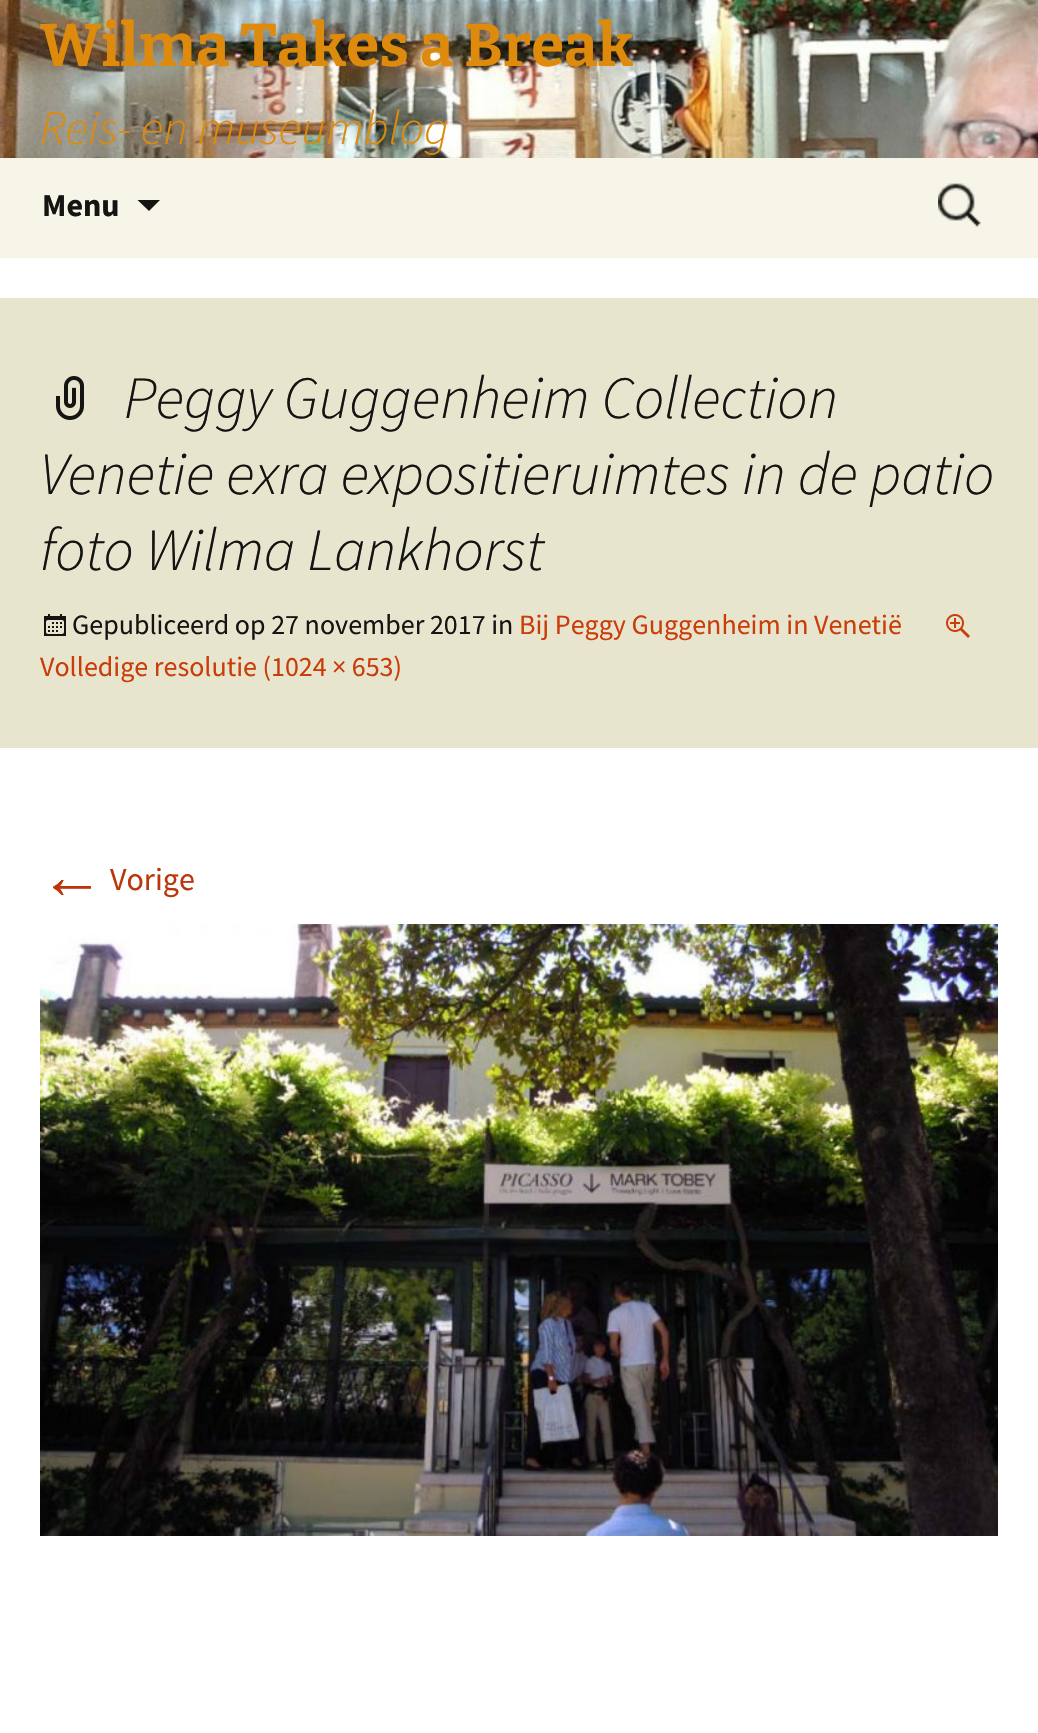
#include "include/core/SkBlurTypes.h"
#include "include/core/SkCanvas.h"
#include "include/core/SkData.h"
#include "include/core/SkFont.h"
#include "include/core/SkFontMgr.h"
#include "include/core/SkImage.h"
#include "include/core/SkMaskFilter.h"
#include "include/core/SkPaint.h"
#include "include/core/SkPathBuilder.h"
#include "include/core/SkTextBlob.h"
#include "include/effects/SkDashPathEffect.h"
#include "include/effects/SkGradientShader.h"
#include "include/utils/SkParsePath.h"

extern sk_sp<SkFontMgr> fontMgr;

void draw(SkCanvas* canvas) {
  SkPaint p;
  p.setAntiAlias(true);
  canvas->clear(SK_ColorWHITE);
  canvas->drawImageRect(SkImages::DeferredFromEncodedData(SkData::MakeFromFileName("images/1.png")), SkRect::MakeLTRB(0, 0, 1038, 158), SkSamplingOptions());
  p.setColor(SkColorSetRGB(247, 245, 231));
  canvas->drawRect(SkRect::MakeLTRB(0, 158, 1038, 258), p);
  p.setColor(SkColorSetRGB(20, 20, 18));
  canvas->drawPath(SkPathBuilder().moveTo(137.5f, 200).lineTo(149, 211).lineTo(160, 200).close().detach(), p);
  canvas->drawImageRect(SkImages::DeferredFromEncodedData(SkData::MakeFromFileName("images/2.png")), SkRect::MakeLTRB(938, 183, 981, 227), SkSamplingOptions());
  p.setColor(SkColorSetRGB(232, 229, 206));
  canvas->drawRect(SkRect::MakeLTRB(0, 298, 1038, 748), p);
  canvas->drawImageRect(SkImages::DeferredFromEncodedData(SkData::MakeFromFileName("images/3.png")), SkRect::MakeLTRB(56, 376, 84, 420), SkSamplingOptions());
  canvas->drawImageRect(SkImages::DeferredFromEncodedData(SkData::MakeFromFileName("images/4.png")), SkRect::MakeLTRB(44, 614, 66, 636), SkSamplingOptions());
  canvas->drawImageRect(SkImages::DeferredFromEncodedData(SkData::MakeFromFileName("images/5.png")), SkRect::MakeLTRB(946, 614, 970, 638), SkSamplingOptions());
  canvas->drawImageRect(SkImages::DeferredFromEncodedData(SkData::MakeFromFileName("images/6.png")), SkRect::MakeLTRB(40, 924, 998, 1536), SkSamplingOptions());
  SkFont font1(fontMgr->matchFamilyStyle("Bitter", SkFontStyle(100, SkFontStyle::kNormal_Width, SkFontStyle::kUpright_Slant)), 60);
  font1.setSubpixel(true);
  p.setColor(SkColorSetRGB(221, 138, 13));
  canvas->drawString("Wilma Takes a Break", 40, 66, font1, p);
  SkFont font2(fontMgr->matchFamilyStyle("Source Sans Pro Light", SkFontStyle(300, SkFontStyle::kNormal_Width, SkFontStyle::kItalic_Slant)), 48);
  font2.setSubpixel(true);
  canvas->drawString("Reis- en museumblog", 40, 144, font2, p);
  SkFont font3(fontMgr->matchFamilyStyle("Source Sans Pro", SkFontStyle::Bold()), 32);
  font3.setSubpixel(true);
  p.setColor(SkColorSetRGB(20, 20, 18));
  canvas->drawString("Menu", 42, 216, font3, p);
  SkFont font4(fontMgr->matchFamilyStyle("Source Sans Pro Light", SkFontStyle(300, SkFontStyle::kNormal_Width, SkFontStyle::kItalic_Slant)), 60);
  font4.setSubpixel(true);
  canvas->drawString("Peggy Guggenheim Collection", 124, 418, font4, p);
  canvas->drawString("Venetie exra expositieruimtes in de patio", 40, 494, font4, p);
  canvas->drawString("foto Wilma Lankhorst", 40, 570, font4, p);
  SkFont font5(fontMgr->matchFamilyStyle("Source Sans Pro", SkFontStyle::Normal()), 28);
  font5.setSubpixel(true);
  canvas->drawString("Gepubliceerd op 27 november 2017 in", 72, 634, font5, p);
  p.setColor(SkColorSetRGB(202, 60, 8));
  canvas->drawString("Bij Peggy Guggenheim in Venetië", 519, 634, font5, p);
  canvas->drawString("Volledige resolutie (1024 × 653)", 40, 676, font5, p);
  SkFont font6(fontMgr->matchFamilyStyle("Liberation Sans", SkFontStyle::Normal()), 64);
  font6.setSubpixel(true);
  p.setColor(SkColorSetRGB(188, 54, 10));
  canvas->drawString("←", 40, 898, font6, p);
  SkFont font7(fontMgr->matchFamilyStyle("Source Sans Pro", SkFontStyle::Normal()), 32);
  font7.setSubpixel(true);
  canvas->drawString("Vorige", 110, 890, font7, p);
}
